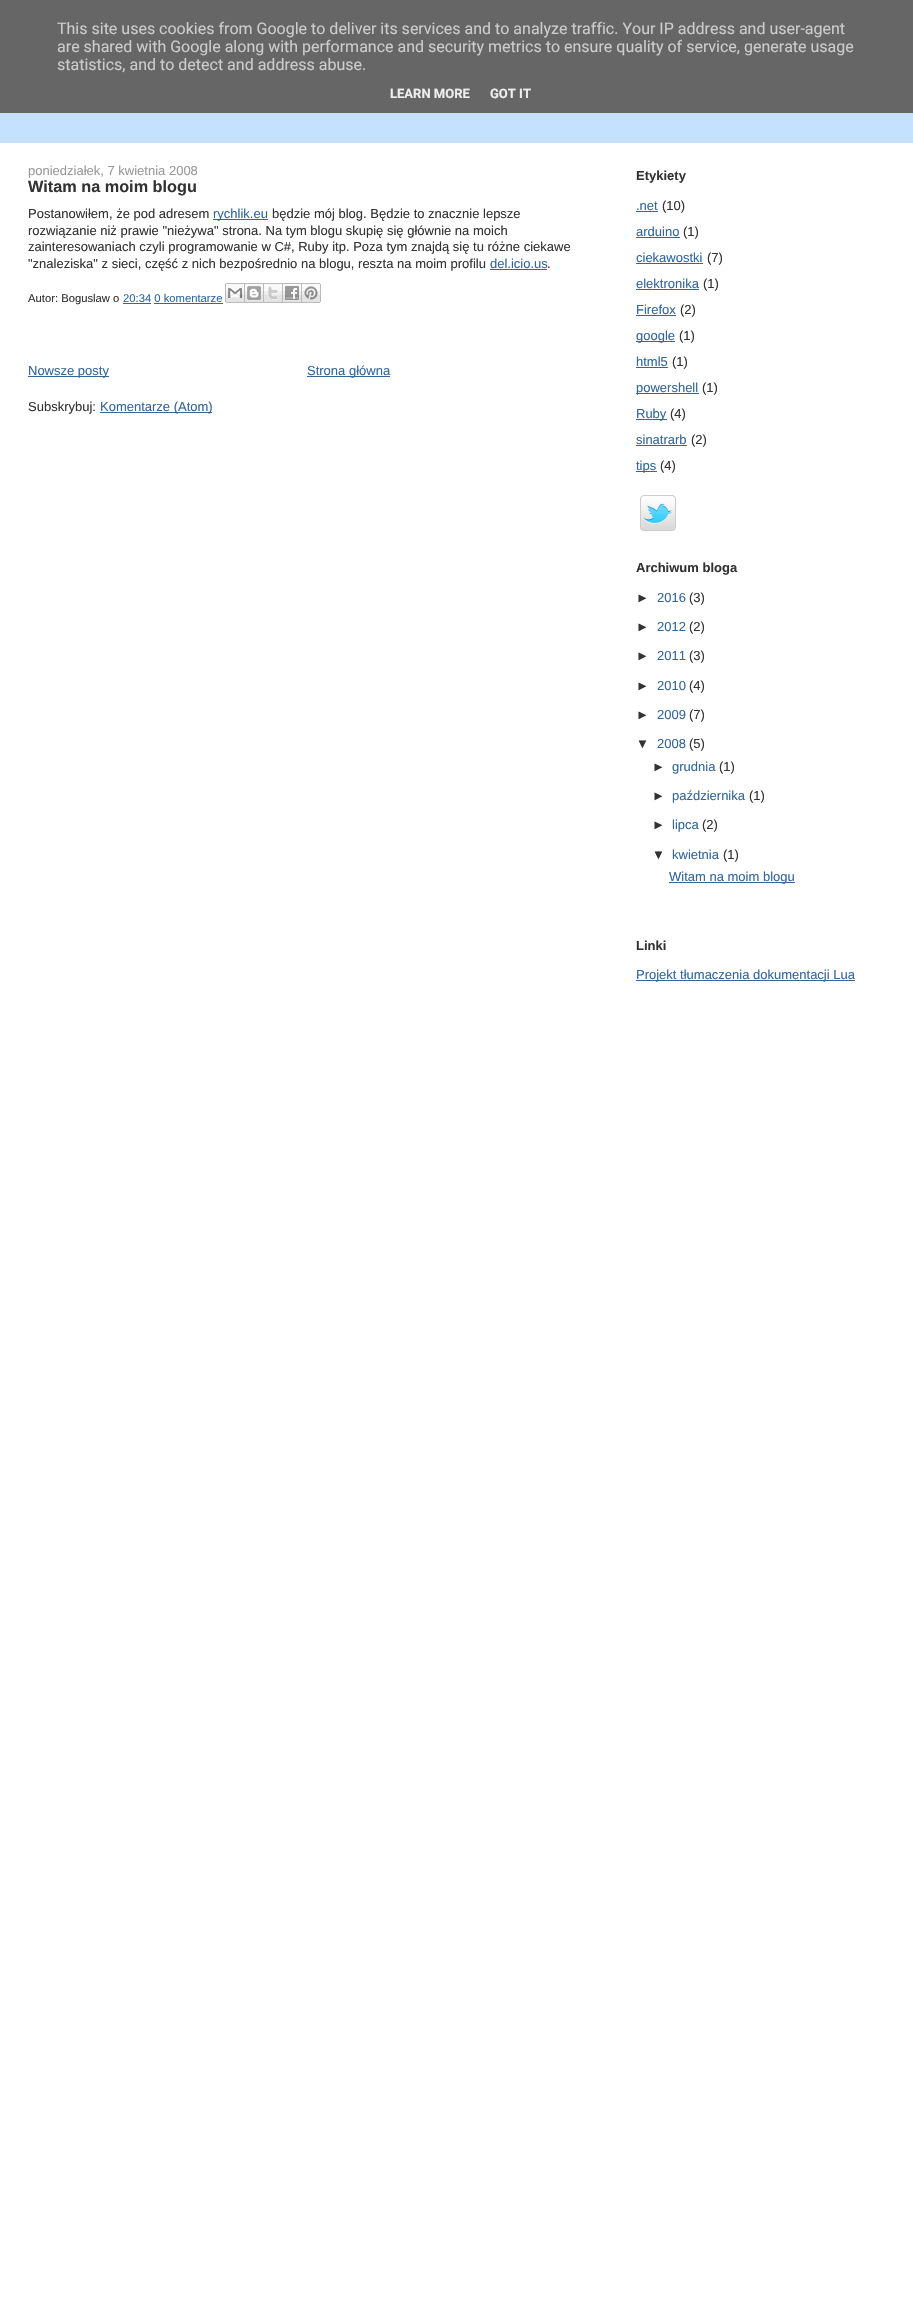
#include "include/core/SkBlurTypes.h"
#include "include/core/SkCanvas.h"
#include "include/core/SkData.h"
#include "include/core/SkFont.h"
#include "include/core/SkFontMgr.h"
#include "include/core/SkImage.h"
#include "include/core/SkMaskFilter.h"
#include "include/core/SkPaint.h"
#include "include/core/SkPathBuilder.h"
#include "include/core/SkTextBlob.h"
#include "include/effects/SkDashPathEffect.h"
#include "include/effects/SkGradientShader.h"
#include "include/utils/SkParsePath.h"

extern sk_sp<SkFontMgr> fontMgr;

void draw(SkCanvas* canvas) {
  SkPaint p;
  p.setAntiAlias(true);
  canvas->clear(SK_ColorWHITE);
  p.setColor(SkColorSetRGB(102, 102, 102));
  canvas->drawRect(SkRect::MakeLTRB(0, 0, 913, 113), p);
  p.setColor(SkColorSetRGB(196, 225, 255));
  canvas->drawRect(SkRect::MakeLTRB(0, 113, 913, 143), p);
  p.setColor(SkColorSetRGB(51, 102, 153));
  canvas->drawRect(SkRect::MakeLTRB(213, 219, 268, 220), p);
  canvas->drawRect(SkRect::MakeLTRB(490, 269, 547, 270), p);
  canvas->drawRect(SkRect::MakeLTRB(123, 303, 151, 304), p);
  canvas->drawImageRect(SkImages::DeferredFromEncodedData(SkData::MakeFromFileName("images/1.png")), SkRect::MakeLTRB(225, 283, 245, 303), SkSamplingOptions());
  canvas->drawImageRect(SkImages::DeferredFromEncodedData(SkData::MakeFromFileName("images/2.png")), SkRect::MakeLTRB(245, 283, 264, 303), SkSamplingOptions());
  canvas->drawImageRect(SkImages::DeferredFromEncodedData(SkData::MakeFromFileName("images/3.png")), SkRect::MakeLTRB(264, 283, 283, 303), SkSamplingOptions());
  canvas->drawImageRect(SkImages::DeferredFromEncodedData(SkData::MakeFromFileName("images/4.png")), SkRect::MakeLTRB(283, 283, 302, 303), SkSamplingOptions());
  canvas->drawImageRect(SkImages::DeferredFromEncodedData(SkData::MakeFromFileName("images/5.png")), SkRect::MakeLTRB(302, 283, 321, 303), SkSamplingOptions());
  canvas->drawRect(SkRect::MakeLTRB(154, 303, 223, 304), p);
  canvas->drawRect(SkRect::MakeLTRB(28, 376, 109, 377), p);
  canvas->drawRect(SkRect::MakeLTRB(307, 376, 390, 377), p);
  canvas->drawRect(SkRect::MakeLTRB(100, 412, 212, 413), p);
  canvas->drawRect(SkRect::MakeLTRB(636, 211, 658, 212), p);
  canvas->drawRect(SkRect::MakeLTRB(636, 237, 680, 238), p);
  canvas->drawRect(SkRect::MakeLTRB(636, 263, 703, 264), p);
  canvas->drawRect(SkRect::MakeLTRB(636, 289, 699, 290), p);
  canvas->drawRect(SkRect::MakeLTRB(636, 315, 676, 316), p);
  canvas->drawRect(SkRect::MakeLTRB(636, 341, 675, 342), p);
  canvas->drawRect(SkRect::MakeLTRB(636, 367, 668, 368), p);
  canvas->drawRect(SkRect::MakeLTRB(636, 393, 699, 394), p);
  canvas->drawRect(SkRect::MakeLTRB(636, 419, 667, 420), p);
  canvas->drawRect(SkRect::MakeLTRB(636, 445, 687, 446), p);
  canvas->drawRect(SkRect::MakeLTRB(636, 471, 657, 472), p);
  canvas->drawImageRect(SkImages::DeferredFromEncodedData(SkData::MakeFromFileName("images/6.png")), SkRect::MakeLTRB(640, 495, 676, 531), SkSamplingOptions());
  canvas->drawRect(SkRect::MakeLTRB(669, 882, 795, 883), p);
  canvas->drawRect(SkRect::MakeLTRB(636, 980, 855, 981), p);
  SkFont font1(fontMgr->matchFamilyStyle("Roboto", SkFontStyle::Normal()), 16);
  font1.setSubpixel(true);
  p.setColor(SkColorSetRGB(204, 204, 204));
  canvas->drawString("This site uses cookies from Google to deliver its services and to analyze traffic. Your IP address and user-agent", 57, 34, font1, p);
  canvas->drawString("are shared with Google along with performance and security metrics to ensure quality of service, generate usage", 57, 52, font1, p);
  canvas->drawString("statistics, and to detect and address abuse.", 57, 70, font1, p);
  SkFont font2(fontMgr->matchFamilyStyle("Roboto", SkFontStyle::Bold()), 13);
  font2.setSubpixel(true);
  p.setColor(SkColorSetRGB(238, 238, 238));
  canvas->drawString("LEARN MORE", 390, 98, font2, p);
  canvas->drawString("GOT IT", 490, 98, font2, p);
  SkFont font3(fontMgr->matchFamilyStyle("Liberation Sans", SkFontStyle::Normal()), 13);
  font3.setSubpixel(true);
  p.setColor(SkColorSetRGB(153, 153, 153));
  canvas->drawString("poniedziałek, 7 kwietnia 2008", 28, 175, font3, p);
  SkFont font4(fontMgr->matchFamilyStyle("Liberation Sans", SkFontStyle::Bold()), 16.25f);
  font4.setSubpixel(true);
  p.setColor(SkColorSetRGB(51, 51, 51));
  canvas->drawString("Witam na moim blogu", 28, 192, font4, p);
  canvas->drawString("Postanowiłem, że pod adresem", 28, 218, font3, p);
  p.setColor(SkColorSetRGB(51, 102, 153));
  canvas->drawString("rychlik.eu", 213, 218, font3, p);
  p.setColor(SkColorSetRGB(51, 51, 51));
  canvas->drawString("będzie mój blog. Będzie to znacznie lepsze", 272, 218, font3, p);
  canvas->drawString("rozwiązanie niż prawie \"nieżywa\" strona. Na tym blogu skupię się głównie na moich", 28, 235, font3, p);
  canvas->drawString("zainteresowaniach czyli programowanie w C#, Ruby itp. Poza tym znajdą się tu różne ciekawe", 28, 251, font3, p);
  canvas->drawString("\"znaleziska\" z sieci, część z nich bezpośrednio na blogu, reszta na moim profilu", 28, 268, font3, p);
  p.setColor(SkColorSetRGB(51, 102, 153));
  canvas->drawString("del.icio.us", 490, 268, font3, p);
  p.setColor(SkColorSetRGB(51, 51, 51));
  canvas->drawString(".", 547, 268, font3, p);
  SkFont font5(fontMgr->matchFamilyStyle("Liberation Sans", SkFontStyle::Normal()), 11.25f);
  font5.setSubpixel(true);
  canvas->drawString("Autor: Boguslaw o", 28, 302, font5, p);
  p.setColor(SkColorSetRGB(51, 102, 153));
  canvas->drawString("20:34 0 komentarze", 123, 302, font5, p);
  canvas->drawString("Nowsze posty", 28, 375, font3, p);
  canvas->drawString("Strona główna", 307, 375, font3, p);
  p.setColor(SkColorSetRGB(51, 51, 51));
  canvas->drawString("Subskrybuj:", 28, 411, font3, p);
  p.setColor(SkColorSetRGB(51, 102, 153));
  canvas->drawString("Komentarze (Atom)", 100, 411, font3, p);
  SkFont font6(fontMgr->matchFamilyStyle("Liberation Sans", SkFontStyle::Bold()), 13);
  font6.setSubpixel(true);
  p.setColor(SkColorSetRGB(51, 51, 51));
  canvas->drawString("Etykiety", 636, 180, font6, p);
  p.setColor(SkColorSetRGB(51, 102, 153));
  canvas->drawString(".net", 636, 210, font3, p);
  p.setColor(SkColorSetRGB(51, 51, 51));
  canvas->drawString("(10)", 662, 210, font3, p);
  p.setColor(SkColorSetRGB(51, 102, 153));
  canvas->drawString("arduino", 636, 236, font3, p);
  p.setColor(SkColorSetRGB(51, 51, 51));
  canvas->drawString("(1)", 683, 236, font3, p);
  p.setColor(SkColorSetRGB(51, 102, 153));
  canvas->drawString("ciekawostki", 636, 262, font3, p);
  p.setColor(SkColorSetRGB(51, 51, 51));
  canvas->drawString("(7)", 707, 262, font3, p);
  p.setColor(SkColorSetRGB(51, 102, 153));
  canvas->drawString("elektronika", 636, 288, font3, p);
  p.setColor(SkColorSetRGB(51, 51, 51));
  canvas->drawString("(1)", 703, 288, font3, p);
  p.setColor(SkColorSetRGB(51, 102, 153));
  canvas->drawString("Firefox", 636, 314, font3, p);
  p.setColor(SkColorSetRGB(51, 51, 51));
  canvas->drawString("(2)", 680, 314, font3, p);
  p.setColor(SkColorSetRGB(51, 102, 153));
  canvas->drawString("google", 636, 340, font3, p);
  p.setColor(SkColorSetRGB(51, 51, 51));
  canvas->drawString("(1)", 679, 340, font3, p);
  p.setColor(SkColorSetRGB(51, 102, 153));
  canvas->drawString("html5", 636, 366, font3, p);
  p.setColor(SkColorSetRGB(51, 51, 51));
  canvas->drawString("(1)", 672, 366, font3, p);
  p.setColor(SkColorSetRGB(51, 102, 153));
  canvas->drawString("powershell", 636, 392, font3, p);
  p.setColor(SkColorSetRGB(51, 51, 51));
  canvas->drawString("(1)", 702, 392, font3, p);
  p.setColor(SkColorSetRGB(51, 102, 153));
  canvas->drawString("Ruby", 636, 418, font3, p);
  p.setColor(SkColorSetRGB(51, 51, 51));
  canvas->drawString("(4)", 670, 418, font3, p);
  p.setColor(SkColorSetRGB(51, 102, 153));
  canvas->drawString("sinatrarb", 636, 444, font3, p);
  p.setColor(SkColorSetRGB(51, 51, 51));
  canvas->drawString("(2)", 691, 444, font3, p);
  p.setColor(SkColorSetRGB(51, 102, 153));
  canvas->drawString("tips", 636, 470, font3, p);
  p.setColor(SkColorSetRGB(51, 51, 51));
  canvas->drawString("(4)", 660, 470, font3, p);
  canvas->drawString("Archiwum bloga", 636, 572, font6, p);
  canvas->drawString("►", 636, 602, font3, p);
  p.setColor(SkColorSetRGB(51, 102, 153));
  canvas->drawString("2016", 657, 602, font3, p);
  p.setColor(SkColorSetRGB(51, 51, 51));
  canvas->drawString("(3)", 689, 602, font3, p);
  canvas->drawString("►", 636, 631, font3, p);
  p.setColor(SkColorSetRGB(51, 102, 153));
  canvas->drawString("2012", 657, 631, font3, p);
  p.setColor(SkColorSetRGB(51, 51, 51));
  canvas->drawString("(2)", 689, 631, font3, p);
  canvas->drawString("►", 636, 660, font3, p);
  p.setColor(SkColorSetRGB(51, 102, 153));
  canvas->drawString("2011", 657, 660, font3, p);
  p.setColor(SkColorSetRGB(51, 51, 51));
  canvas->drawString("(3)", 689, 660, font3, p);
  canvas->drawString("►", 636, 690, font3, p);
  p.setColor(SkColorSetRGB(51, 102, 153));
  canvas->drawString("2010", 657, 690, font3, p);
  p.setColor(SkColorSetRGB(51, 51, 51));
  canvas->drawString("(4)", 689, 690, font3, p);
  canvas->drawString("►", 636, 719, font3, p);
  p.setColor(SkColorSetRGB(51, 102, 153));
  canvas->drawString("2009", 657, 719, font3, p);
  p.setColor(SkColorSetRGB(51, 51, 51));
  canvas->drawString("(7)", 689, 719, font3, p);
  canvas->drawString("▼", 636, 748, font3, p);
  p.setColor(SkColorSetRGB(51, 102, 153));
  canvas->drawString("2008", 657, 748, font3, p);
  p.setColor(SkColorSetRGB(51, 51, 51));
  canvas->drawString("(5)", 689, 748, font3, p);
  canvas->drawString("►", 652, 771, font3, p);
  p.setColor(SkColorSetRGB(51, 102, 153));
  canvas->drawString("grudnia", 672, 771, font3, p);
  p.setColor(SkColorSetRGB(51, 51, 51));
  canvas->drawString("(1)", 719, 771, font3, p);
  canvas->drawString("►", 652, 800, font3, p);
  p.setColor(SkColorSetRGB(51, 102, 153));
  canvas->drawString("października", 672, 800, font3, p);
  p.setColor(SkColorSetRGB(51, 51, 51));
  canvas->drawString("(1)", 749, 800, font3, p);
  canvas->drawString("►", 652, 829, font3, p);
  p.setColor(SkColorSetRGB(51, 102, 153));
  canvas->drawString("lipca", 672, 829, font3, p);
  p.setColor(SkColorSetRGB(51, 51, 51));
  canvas->drawString("(2)", 702, 829, font3, p);
  canvas->drawString("▼", 652, 859, font3, p);
  p.setColor(SkColorSetRGB(51, 102, 153));
  canvas->drawString("kwietnia", 672, 859, font3, p);
  p.setColor(SkColorSetRGB(51, 51, 51));
  canvas->drawString("(1)", 723, 859, font3, p);
  p.setColor(SkColorSetRGB(51, 102, 153));
  canvas->drawString("Witam na moim blogu", 669, 881, font3, p);
  p.setColor(SkColorSetRGB(51, 51, 51));
  canvas->drawString("Linki", 636, 950, font6, p);
  p.setColor(SkColorSetRGB(51, 102, 153));
  canvas->drawString("Projekt tłumaczenia dokumentacji Lua", 636, 979, font3, p);
}
